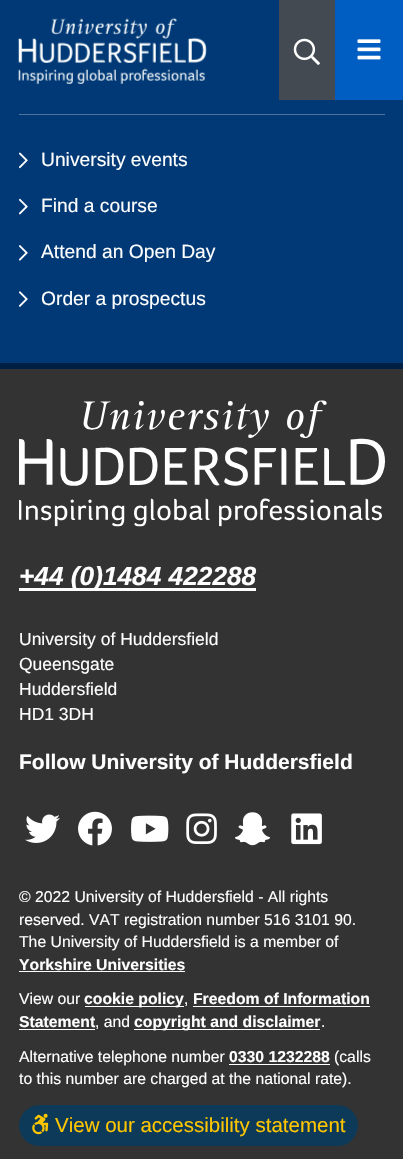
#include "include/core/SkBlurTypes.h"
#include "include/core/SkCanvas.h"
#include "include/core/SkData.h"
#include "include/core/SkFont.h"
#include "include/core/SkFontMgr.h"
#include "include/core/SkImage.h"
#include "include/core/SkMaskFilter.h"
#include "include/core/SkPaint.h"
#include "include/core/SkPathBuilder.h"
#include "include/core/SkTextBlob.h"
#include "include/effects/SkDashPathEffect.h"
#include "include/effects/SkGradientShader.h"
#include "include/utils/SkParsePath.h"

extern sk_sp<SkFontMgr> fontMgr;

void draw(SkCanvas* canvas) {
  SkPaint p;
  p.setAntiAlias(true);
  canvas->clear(SkColorSetRGB(0, 57, 118));
  canvas->drawImageRect(SkImages::DeferredFromEncodedData(SkData::MakeFromFileName("images/1.png")), SkRect::MakeLTRB(18, 18, 207, 84), SkSamplingOptions());
  p.setColor(SkColorSetRGB(68, 74, 81));
  canvas->drawRect(SkRect::MakeLTRB(279, 0, 335, 100), p);
  canvas->drawImageRect(SkImages::DeferredFromEncodedData(SkData::MakeFromFileName("images/2.png")), SkRect::MakeLTRB(293, 38, 320, 65), SkSamplingOptions());
  p.setColor(SkColorSetRGB(0, 94, 194));
  canvas->drawRect(SkRect::MakeLTRB(335, 0, 403, 100), p);
  canvas->drawImageRect(SkImages::DeferredFromEncodedData(SkData::MakeFromFileName("images/3.png")), SkRect::MakeLTRB(357, 39, 381, 60), SkSamplingOptions());
  p.setColor(SkColorSetRGB(0, 32, 67));
  canvas->drawRect(SkRect::MakeLTRB(0, 363, 403, 369), p);
  p.setColor(SkColorSetRGB(77, 116, 159));
  canvas->drawRect(SkRect::MakeLTRB(19, 114, 385, 115), p);
  canvas->drawImageRect(SkImages::DeferredFromEncodedData(SkData::MakeFromFileName("images/4.png")), SkRect::MakeLTRB(19, 152, 28, 169), SkSamplingOptions());
  canvas->drawImageRect(SkImages::DeferredFromEncodedData(SkData::MakeFromFileName("images/5.png")), SkRect::MakeLTRB(19, 198, 28, 215), SkSamplingOptions());
  canvas->drawImageRect(SkImages::DeferredFromEncodedData(SkData::MakeFromFileName("images/6.png")), SkRect::MakeLTRB(19, 245, 28, 261), SkSamplingOptions());
  canvas->drawImageRect(SkImages::DeferredFromEncodedData(SkData::MakeFromFileName("images/7.png")), SkRect::MakeLTRB(19, 291, 28, 307), SkSamplingOptions());
  p.setColor(SkColorSetRGB(51, 51, 51));
  canvas->drawRect(SkRect::MakeLTRB(0, 369, 403, 1159), p);
  canvas->drawImageRect(SkImages::DeferredFromEncodedData(SkData::MakeFromFileName("images/8.png")), SkRect::MakeLTRB(19, 400, 385, 527), SkSamplingOptions());
  p.setColor(SK_ColorWHITE);
  canvas->drawRect(SkRect::MakeLTRB(19, 588, 256, 591), p);
  canvas->drawImageRect(SkImages::DeferredFromEncodedData(SkData::MakeFromFileName("images/9.png")), SkRect::MakeLTRB(25, 814, 60, 843), SkSamplingOptions());
  canvas->drawImageRect(SkImages::DeferredFromEncodedData(SkData::MakeFromFileName("images/10.png")), SkRect::MakeLTRB(78, 811, 112, 846), SkSamplingOptions());
  canvas->drawImageRect(SkImages::DeferredFromEncodedData(SkData::MakeFromFileName("images/11.png")), SkRect::MakeLTRB(131, 815, 169, 842), SkSamplingOptions());
  canvas->drawImageRect(SkImages::DeferredFromEncodedData(SkData::MakeFromFileName("images/12.png")), SkRect::MakeLTRB(186, 813, 217, 845), SkSamplingOptions());
  canvas->drawImageRect(SkImages::DeferredFromEncodedData(SkData::MakeFromFileName("images/13.png")), SkRect::MakeLTRB(235, 812, 270, 846), SkSamplingOptions());
  canvas->drawImageRect(SkImages::DeferredFromEncodedData(SkData::MakeFromFileName("images/14.png")), SkRect::MakeLTRB(291, 813, 322, 845), SkSamplingOptions());
  canvas->drawRect(SkRect::MakeLTRB(19, 971, 185, 972), p);
  canvas->drawRect(SkRect::MakeLTRB(85, 1006, 184, 1007), p);
  canvas->drawRect(SkRect::MakeLTRB(193, 1006, 370, 1007), p);
  canvas->drawRect(SkRect::MakeLTRB(19, 1029, 95, 1030), p);
  canvas->drawRect(SkRect::MakeLTRB(134, 1029, 320, 1030), p);
  canvas->drawRect(SkRect::MakeLTRB(229, 1064, 330, 1065), p);
  p.setColor(SkColorSetRGB(13, 58, 88));
  canvas->drawRoundRect(SkRect::MakeLTRB(19, 1105, 358, 1146), 20.5f, 20.5f, p);
  canvas->drawImageRect(SkImages::DeferredFromEncodedData(SkData::MakeFromFileName("images/15.png")), SkRect::MakeLTRB(32, 1113, 49, 1135), SkSamplingOptions());
  SkFont font1(fontMgr->matchFamilyStyle("Liberation Sans", SkFontStyle::Normal()), 19.25f);
  font1.setSubpixel(true);
  p.setColor(SK_ColorWHITE);
  canvas->drawString("University events", 41, 166, font1, p);
  canvas->drawString("Find a course", 41, 212, font1, p);
  canvas->drawString("Attend an Open Day", 41, 258, font1, p);
  canvas->drawString("Order a prospectus", 41, 305, font1, p);
  SkFont font2(fontMgr->matchFamilyStyle("Liberation Sans", SkFontStyle::BoldItalic()), 26.25f);
  font2.setSubpixel(true);
  canvas->drawString("+44 (0)1484 422288", 19, 585, font2, p);
  SkFont font3(fontMgr->matchFamilyStyle("Liberation Sans", SkFontStyle::Normal()), 17.5f);
  font3.setSubpixel(true);
  canvas->drawString("University of Huddersfield", 19, 645, font3, p);
  canvas->drawString("Queensgate", 19, 670, font3, p);
  canvas->drawString("Huddersfield", 19, 695, font3, p);
  canvas->drawString("HD1 3DH", 19, 720, font3, p);
  SkFont font4(fontMgr->matchFamilyStyle("Liberation Sans", SkFontStyle::Bold()), 21);
  font4.setSubpixel(true);
  canvas->drawString("Follow University of Huddersfield", 19, 769, font4, p);
  SkFont font5(fontMgr->matchFamilyStyle("Liberation Sans", SkFontStyle::Normal()), 15.75f);
  font5.setSubpixel(true);
  canvas->drawString("© 2022 University of Huddersfield - All rights", 19, 902, font5, p);
  canvas->drawString("reserved. VAT registration number 516 3101 90.", 19, 925, font5, p);
  canvas->drawString("The University of Huddersfield is a member of", 19, 947, font5, p);
  SkFont font6(fontMgr->matchFamilyStyle("Liberation Sans", SkFontStyle::Bold()), 15.75f);
  font6.setSubpixel(true);
  canvas->drawString("Yorkshire Universities", 19, 970, font6, p);
  canvas->drawString("View our", 19, 1004, font5, p);
  canvas->drawString("cookie policy", 84, 1004, font6, p);
  canvas->drawString(",", 184, 1004, font5, p);
  canvas->drawString("Freedom of Information", 193, 1004, font6, p);
  canvas->drawString("Statement", 19, 1027, font6, p);
  canvas->drawString(", and", 95, 1027, font5, p);
  canvas->drawString("copyright and disclaimer", 134, 1027, font6, p);
  canvas->drawString(".", 321, 1027, font5, p);
  canvas->drawString("Alternative telephone number", 19, 1062, font5, p);
  canvas->drawString("0330 1232288", 229, 1062, font6, p);
  canvas->drawString("(calls", 334, 1062, font5, p);
  canvas->drawString("to this number are charged at the national rate).", 19, 1084, font5, p);
  SkFont font7(fontMgr->matchFamilyStyle("Liberation Sans", SkFontStyle::Normal()), 20.5f);
  font7.setSubpixel(true);
  p.setColor(SkColorSetRGB(255, 198, 0));
  canvas->drawString("View our accessibility statement", 55, 1132, font7, p);
}
